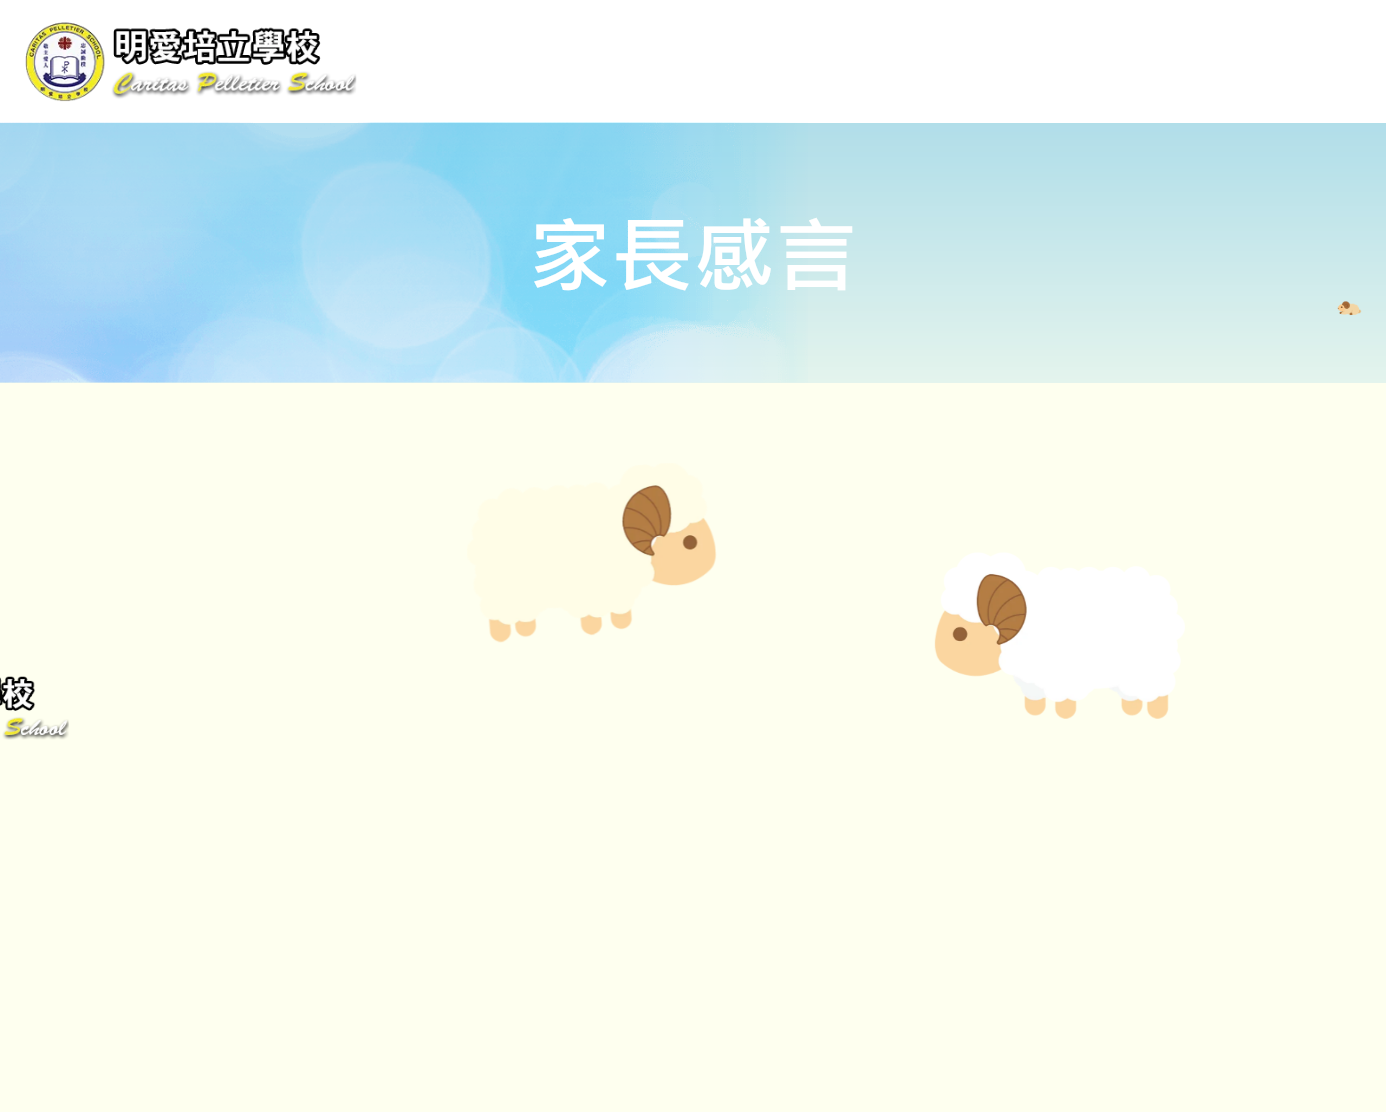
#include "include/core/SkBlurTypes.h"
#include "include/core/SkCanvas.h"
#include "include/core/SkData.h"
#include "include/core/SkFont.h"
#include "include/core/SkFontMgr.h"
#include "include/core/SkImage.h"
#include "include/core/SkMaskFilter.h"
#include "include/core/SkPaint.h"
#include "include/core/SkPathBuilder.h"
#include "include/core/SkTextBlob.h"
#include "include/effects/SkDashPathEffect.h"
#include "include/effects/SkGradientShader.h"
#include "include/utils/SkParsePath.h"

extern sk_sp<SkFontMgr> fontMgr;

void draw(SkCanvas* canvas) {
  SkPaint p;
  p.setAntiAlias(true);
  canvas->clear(SkColorSetRGB(254, 255, 239));
  p.setColor(SK_ColorWHITE);
  canvas->drawRect(SkRect::MakeLTRB(0, 0, 1386, 123), p);
  canvas->drawImageRect(SkImages::DeferredFromEncodedData(SkData::MakeFromFileName("images/1.png")), SkRect::MakeLTRB(25, 22, 357, 102), SkSamplingOptions());
  canvas->drawImageRect(SkImages::DeferredFromEncodedData(SkData::MakeFromFileName("images/2.png")), SkRect::MakeLTRB(0, 122, 808, 383), SkSamplingOptions());
  {
    const SkColor colors[] = {SkColorSetARGB(138, 110, 193, 228), SkColorSetARGB(46, 110, 193, 228)};
    const float stops[] = {0, 1};
    const SkPoint ends[] = {{693, 122}, {693, 383}};
    p.setShader(SkGradientShader::MakeLinear(ends, colors, stops, 2, SkTileMode::kClamp));
    p.setAlpha(255);
  }
  canvas->drawRect(SkRect::MakeLTRB(0, 123, 1386, 383), p);
  canvas->drawImageRect(SkImages::DeferredFromEncodedData(SkData::MakeFromFileName("images/3.png")), SkRect::MakeLTRB(1337, 301, 1362, 316), SkSamplingOptions());
  canvas->drawImageRect(SkImages::DeferredFromEncodedData(SkData::MakeFromFileName("images/4.png")), SkRect::MakeLTRB(0, 676, 69, 740), SkSamplingOptions());
  canvas->drawImageRect(SkImages::DeferredFromEncodedData(SkData::MakeFromFileName("images/5.png")), SkRect::MakeLTRB(467, 463, 717, 643), SkSamplingOptions());
  canvas->drawImageRect(SkImages::DeferredFromEncodedData(SkData::MakeFromFileName("images/6.png")), SkRect::MakeLTRB(934, 552, 1185, 719), SkSamplingOptions());
  SkFont font1(fontMgr->matchFamilyStyle("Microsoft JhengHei", SkFontStyle::Bold()), 82);
  font1.setSubpixel(true);
  p.setShader(nullptr);
  p.setColor(SK_ColorWHITE);
  canvas->drawString("家長感言", 529, 286, font1, p);
}
